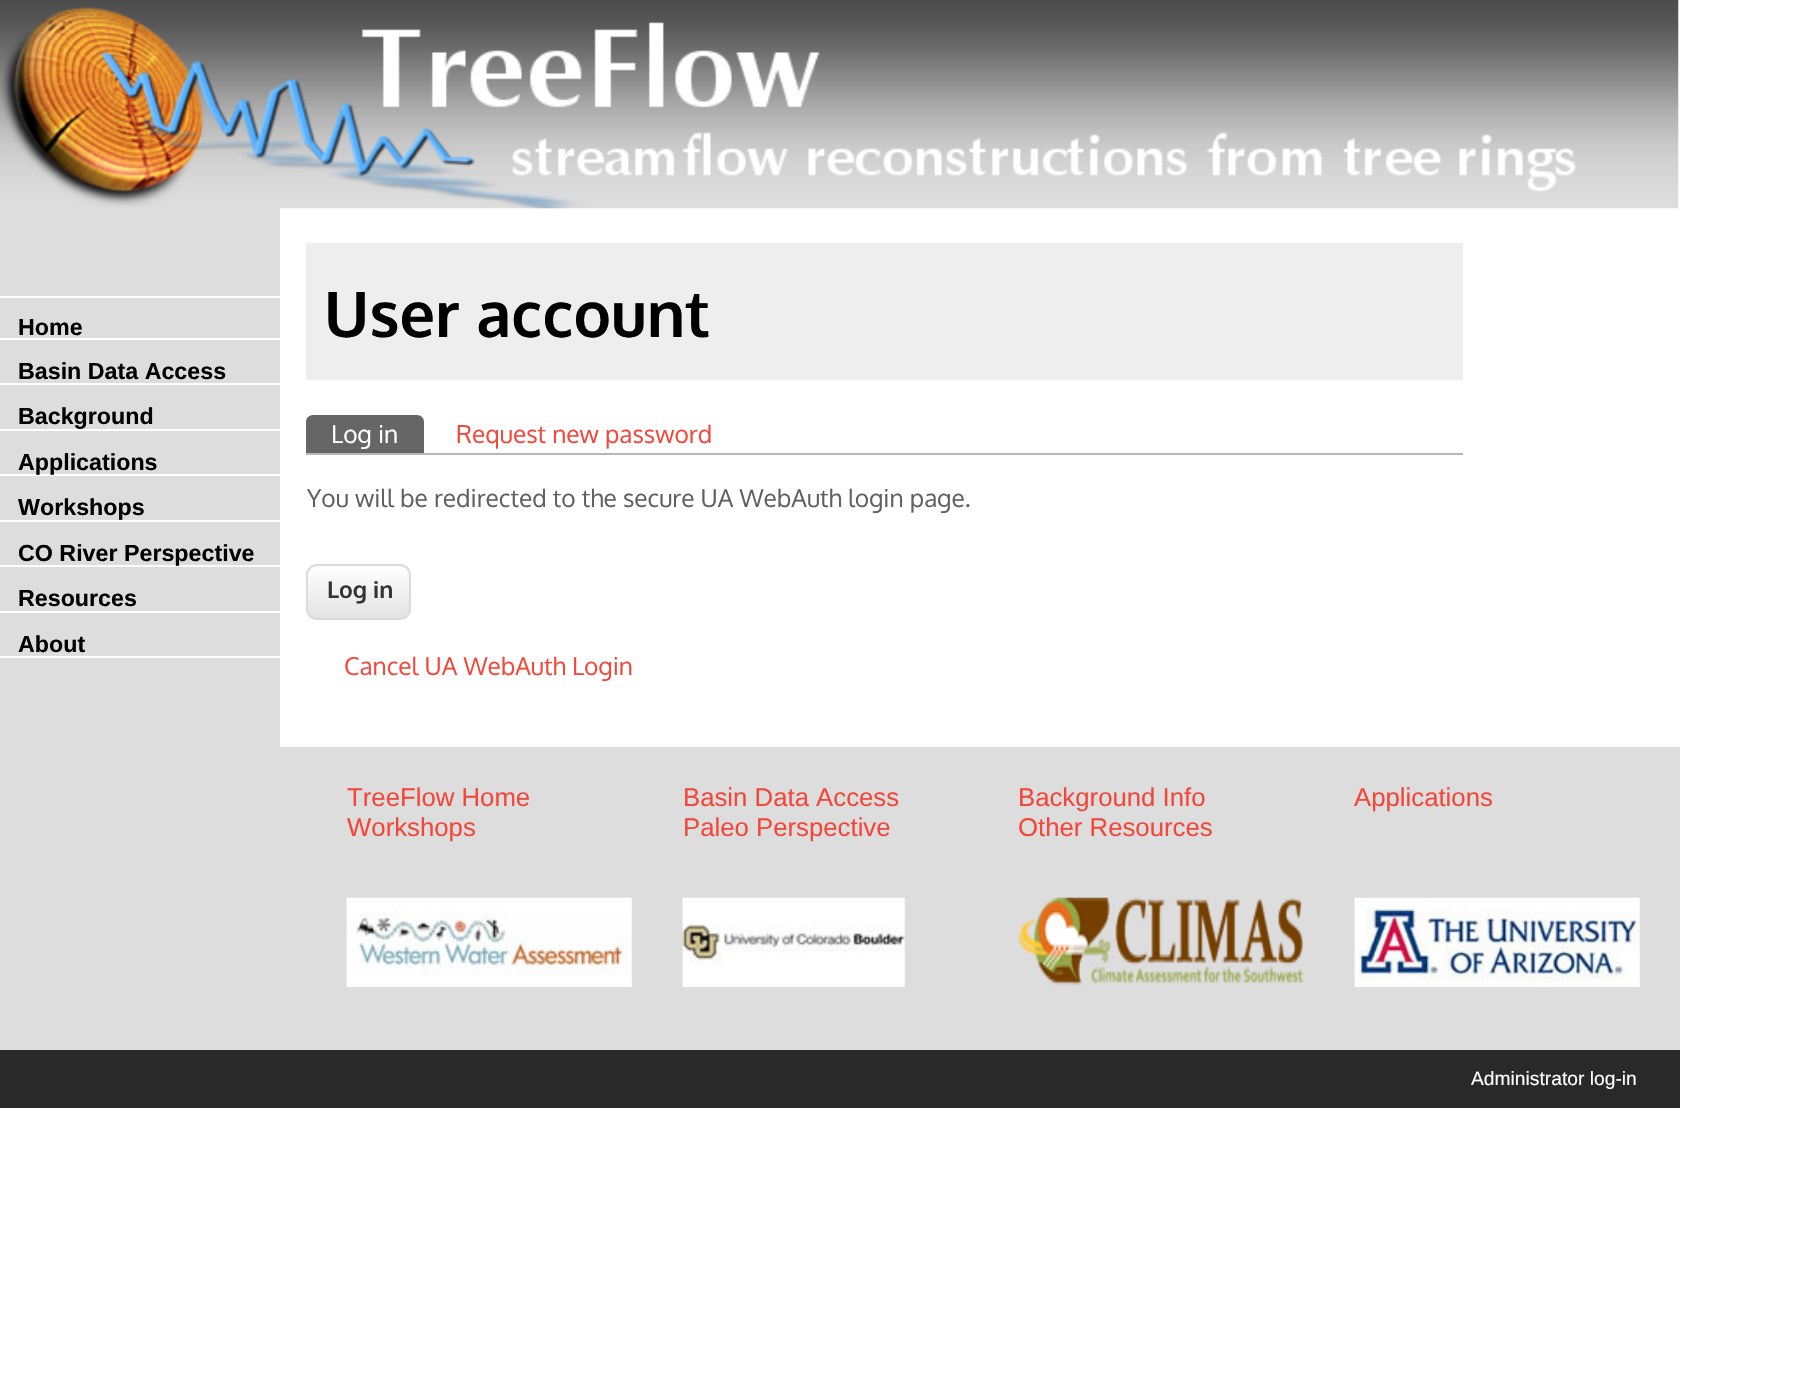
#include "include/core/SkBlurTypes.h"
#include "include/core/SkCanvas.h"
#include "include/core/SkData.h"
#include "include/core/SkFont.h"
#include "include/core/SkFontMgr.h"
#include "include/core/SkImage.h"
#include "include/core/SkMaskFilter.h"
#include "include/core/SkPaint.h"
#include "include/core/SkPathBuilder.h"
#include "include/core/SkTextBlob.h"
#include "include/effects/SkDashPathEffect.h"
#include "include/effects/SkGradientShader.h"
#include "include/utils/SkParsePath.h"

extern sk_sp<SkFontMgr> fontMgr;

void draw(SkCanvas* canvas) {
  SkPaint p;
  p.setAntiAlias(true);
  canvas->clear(SK_ColorWHITE);
  p.setColor(SkColorSetRGB(221, 221, 221));
  canvas->drawRect(SkRect::MakeLTRB(0, 208, 280, 747), p);
  canvas->drawImageRect(SkImages::DeferredFromEncodedData(SkData::MakeFromFileName("images/1.png")), SkRect::MakeLTRB(0, 0, 1679, 209), SkSamplingOptions());
  p.setColor(SK_ColorWHITE);
  canvas->drawRect(SkRect::MakeLTRB(0, 296, 280, 298), p);
  canvas->drawRect(SkRect::MakeLTRB(0, 338, 280, 340), p);
  canvas->drawRect(SkRect::MakeLTRB(0, 383, 280, 385), p);
  canvas->drawRect(SkRect::MakeLTRB(0, 429, 280, 431), p);
  canvas->drawRect(SkRect::MakeLTRB(0, 474, 280, 476), p);
  canvas->drawRect(SkRect::MakeLTRB(0, 520, 280, 522), p);
  canvas->drawRect(SkRect::MakeLTRB(0, 565, 280, 567), p);
  canvas->drawRect(SkRect::MakeLTRB(0, 611, 280, 613), p);
  canvas->drawRect(SkRect::MakeLTRB(0, 656, 280, 658), p);
  p.setColor(SkColorSetRGB(238, 238, 238));
  canvas->drawRect(SkRect::MakeLTRB(306, 243, 1463, 380), p);
  p.setColor(SkColorSetRGB(183, 183, 183));
  canvas->drawRect(SkRect::MakeLTRB(306, 453, 1463, 455), p);
  p.setColor(SkColorSetRGB(102, 102, 102));
  canvas->drawPath(SkPathBuilder().moveTo(313, 415).lineTo(417, 415).cubicTo(421, 415, 424, 418, 424, 422).lineTo(424, 453).lineTo(306, 453).lineTo(306, 422).cubicTo(306, 418, 309, 415, 313, 415).close().detach(), p);
  canvas->save();
  canvas->clipPath(SkPathBuilder().moveTo(317, 564).lineTo(400, 564).cubicTo(406, 564, 411, 569, 411, 575).lineTo(411, 609).cubicTo(411, 615, 406, 620, 400, 620).lineTo(317, 620).cubicTo(311, 620, 306, 615, 306, 609).lineTo(306, 575).cubicTo(306, 569, 311, 564, 317, 564).close().detach(), true);
  {
    const SkColor colors[] = {SK_ColorWHITE, SkColorSetRGB(227, 227, 227)};
    const float stops[] = {0, 1};
    const SkPoint ends[] = {{359, 565}, {359, 618}};
    p.setShader(SkGradientShader::MakeLinear(ends, colors, stops, 2, SkTileMode::kClamp));
    p.setAlpha(255);
  }
  canvas->drawRect(SkRect::MakeLTRB(306, 565, 411, 618), p);
  canvas->restore();
  p.setStyle(SkPaint::kStroke_Style);
  p.setStrokeWidth(2);
  p.setShader(nullptr);
  p.setColor(SkColorSetRGB(219, 219, 219));
  canvas->drawRoundRect(SkRect::MakeLTRB(307, 565, 410, 619), 10, 10, p);
  p.setStyle(SkPaint::kFill_Style);
  p.setColor(SkColorSetRGB(221, 221, 221));
  canvas->drawRect(SkRect::MakeLTRB(0, 747, 1680, 1050), p);
  canvas->drawImageRect(SkImages::DeferredFromEncodedData(SkData::MakeFromFileName("images/2.png")), SkRect::MakeLTRB(346, 897, 632, 987), SkSamplingOptions());
  canvas->drawImageRect(SkImages::DeferredFromEncodedData(SkData::MakeFromFileName("images/3.png")), SkRect::MakeLTRB(682, 897, 905, 987), SkSamplingOptions());
  canvas->drawImageRect(SkImages::DeferredFromEncodedData(SkData::MakeFromFileName("images/4.png")), SkRect::MakeLTRB(1018, 897, 1304, 986), SkSamplingOptions());
  canvas->drawImageRect(SkImages::DeferredFromEncodedData(SkData::MakeFromFileName("images/5.png")), SkRect::MakeLTRB(1354, 897, 1640, 987), SkSamplingOptions());
  p.setColor(SkColorSetRGB(41, 41, 41));
  canvas->drawRect(SkRect::MakeLTRB(0, 1050, 1680, 1108), p);
  SkFont font1(fontMgr->matchFamilyStyle("Liberation Sans", SkFontStyle::Bold()), 23.25f);
  font1.setSubpixel(true);
  p.setColor(SK_ColorBLACK);
  canvas->drawString("Home", 18, 335, font1, p);
  canvas->drawString("Basin Data Access", 18, 379, font1, p);
  canvas->drawString("Background", 18, 424, font1, p);
  canvas->drawString("Applications", 18, 470, font1, p);
  canvas->drawString("Workshops", 18, 515, font1, p);
  canvas->drawString("CO River Perspective", 18, 561, font1, p);
  canvas->drawString("Resources", 18, 606, font1, p);
  canvas->drawString("About", 18, 652, font1, p);
  SkFont font2(fontMgr->matchFamilyStyle("Oxygen", SkFontStyle::Bold()), 63);
  font2.setSubpixel(true);
  canvas->drawString("User account", 324, 337, font2, p);
  SkFont font3(fontMgr->matchFamilyStyle("Oxygen", SkFontStyle::Normal()), 24.5f);
  font3.setSubpixel(true);
  p.setColor(SK_ColorWHITE);
  canvas->drawString("Log in", 331, 443, font3, p);
  p.setColor(SkColorSetRGB(244, 71, 58));
  canvas->drawString("Request new password", 456, 443, font3, p);
  p.setColor(SkColorSetRGB(96, 96, 96));
  canvas->drawString("You will be redirected to the secure UA WebAuth login page.", 307, 507, font3, p);
  SkFont font4(fontMgr->matchFamilyStyle("Oxygen", SkFontStyle::Bold()), 23);
  font4.setSubpixel(true);
  p.setColor(SkColorSetRGB(51, 51, 51));
  canvas->drawString("Log in", 327, 598, font4, p);
  p.setColor(SkColorSetRGB(244, 71, 58));
  canvas->drawString("Cancel UA WebAuth Login", 344, 675, font3, p);
  SkFont font5(fontMgr->matchFamilyStyle("Liberation Sans", SkFontStyle::Normal()), 25.75f);
  font5.setSubpixel(true);
  canvas->drawString("TreeFlow Home", 347, 806, font5, p);
  canvas->drawString("Workshops", 347, 836, font5, p);
  canvas->drawString("Basin Data Access", 683, 806, font5, p);
  canvas->drawString("Paleo Perspective", 683, 836, font5, p);
  canvas->drawString("Background Info", 1018, 806, font5, p);
  canvas->drawString("Other Resources", 1018, 836, font5, p);
  canvas->drawString("Applications", 1354, 806, font5, p);
  SkFont font6(fontMgr->matchFamilyStyle("Liberation Sans", SkFontStyle::Normal()), 19.25f);
  font6.setSubpixel(true);
  p.setColor(SK_ColorWHITE);
  canvas->drawString("Administrator log-in", 1471, 1085, font6, p);
}
